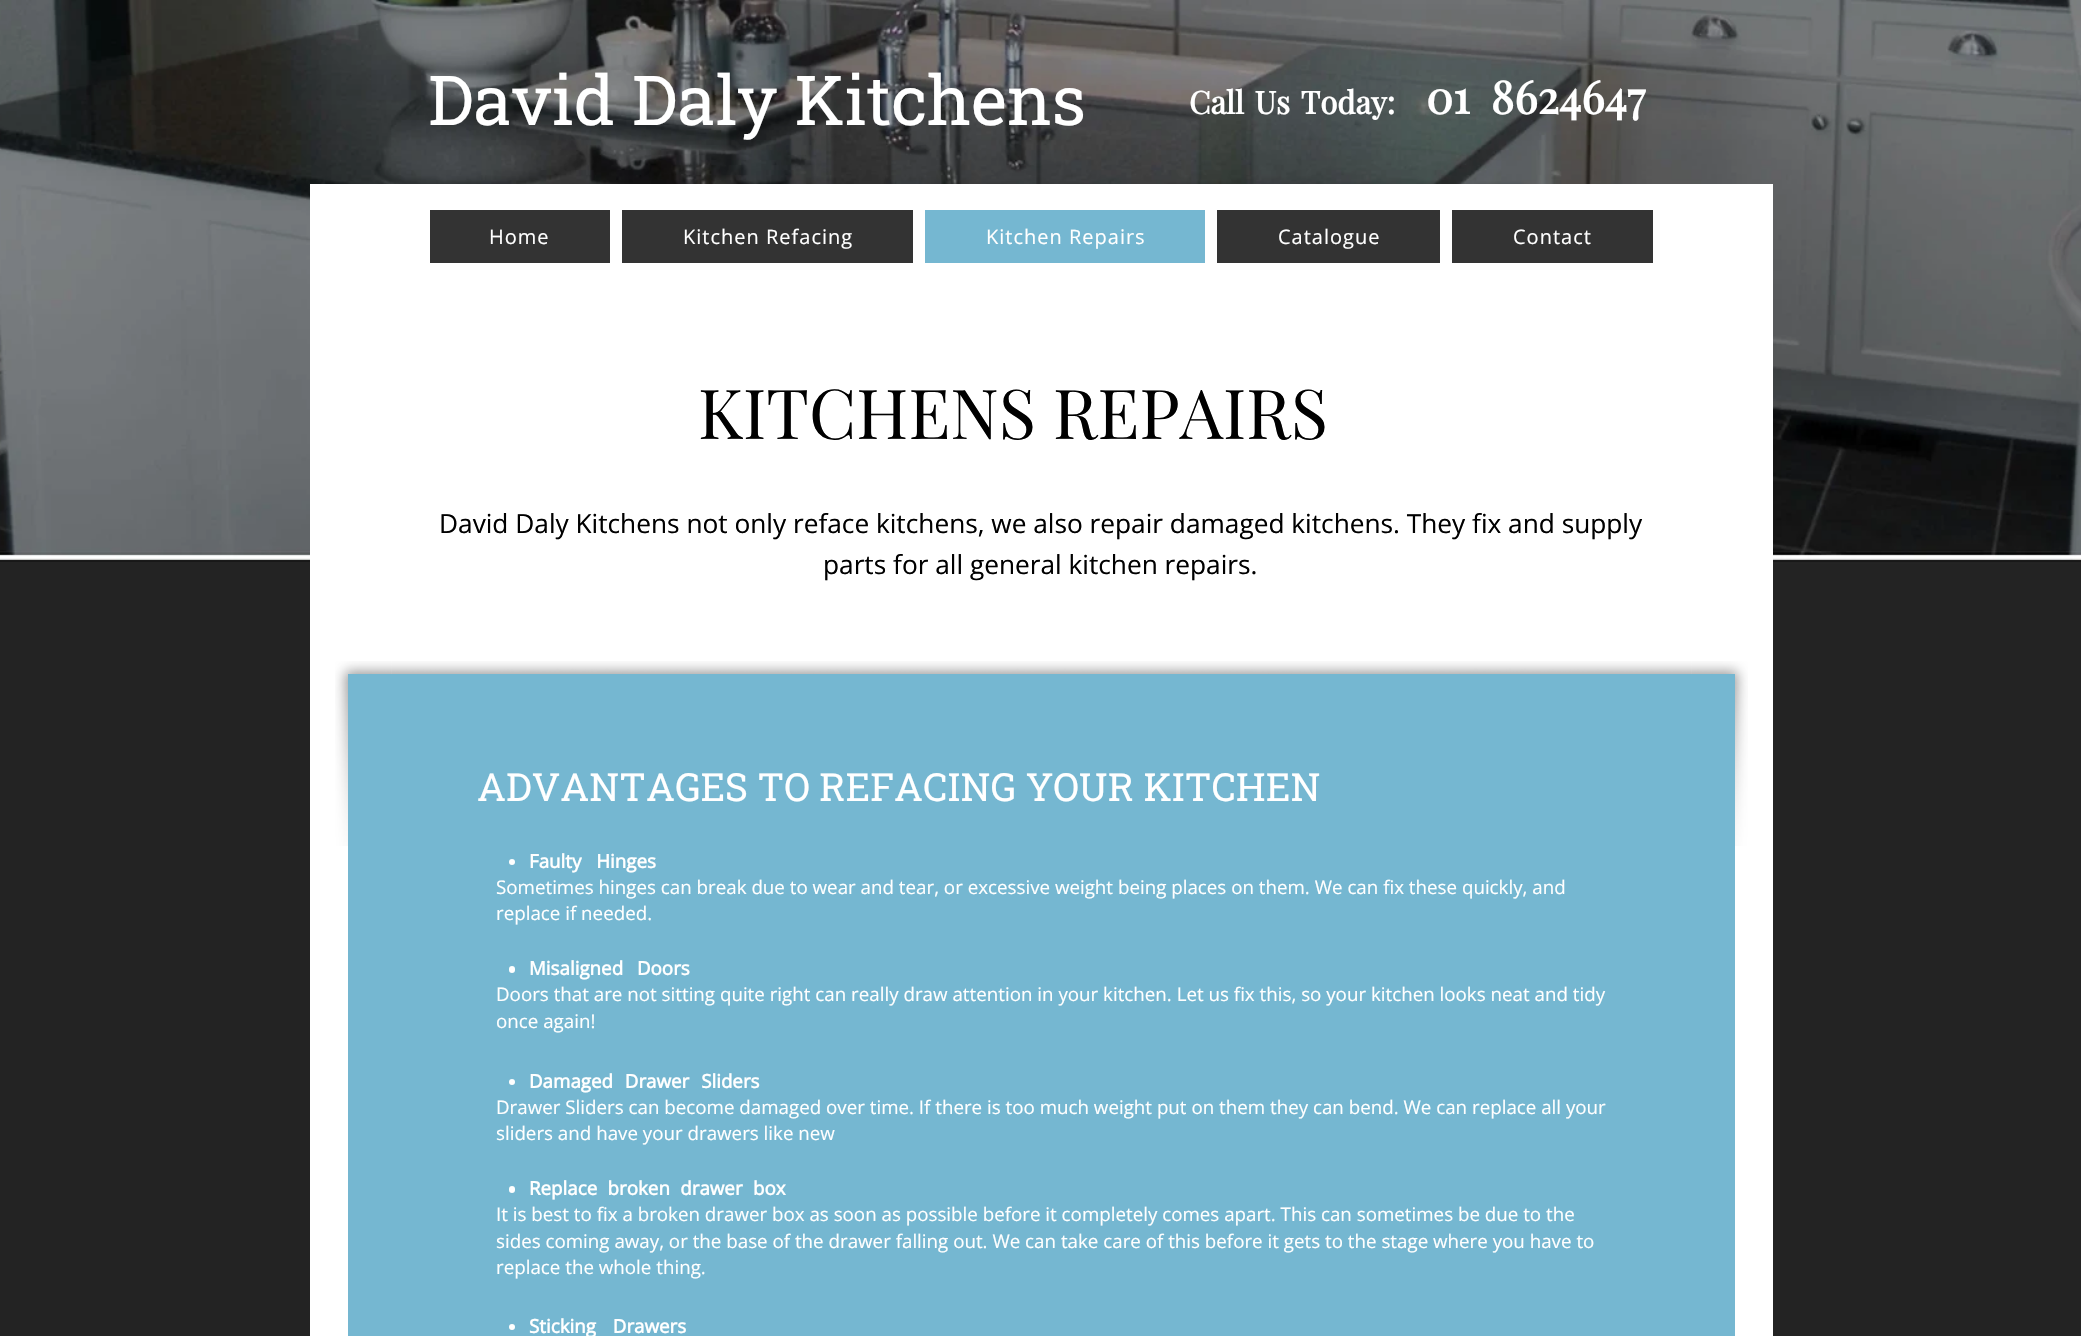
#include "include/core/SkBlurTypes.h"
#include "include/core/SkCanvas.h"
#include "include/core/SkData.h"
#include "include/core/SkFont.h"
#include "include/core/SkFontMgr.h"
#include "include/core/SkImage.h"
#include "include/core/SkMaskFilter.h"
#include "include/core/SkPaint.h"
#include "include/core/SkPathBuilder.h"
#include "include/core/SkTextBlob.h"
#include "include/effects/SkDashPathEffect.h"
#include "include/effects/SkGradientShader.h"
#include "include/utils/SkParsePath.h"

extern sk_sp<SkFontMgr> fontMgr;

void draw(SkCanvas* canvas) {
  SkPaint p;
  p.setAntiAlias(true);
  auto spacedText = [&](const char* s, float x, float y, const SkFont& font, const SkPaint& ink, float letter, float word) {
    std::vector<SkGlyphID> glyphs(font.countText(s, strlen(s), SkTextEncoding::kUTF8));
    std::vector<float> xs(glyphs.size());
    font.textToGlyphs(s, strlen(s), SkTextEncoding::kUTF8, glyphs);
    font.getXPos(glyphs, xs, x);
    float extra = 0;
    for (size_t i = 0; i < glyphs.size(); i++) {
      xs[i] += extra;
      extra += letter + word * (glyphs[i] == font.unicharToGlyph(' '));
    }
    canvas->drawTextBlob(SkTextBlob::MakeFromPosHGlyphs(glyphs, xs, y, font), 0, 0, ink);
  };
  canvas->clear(SK_ColorWHITE);
  canvas->drawImageRect(SkImages::DeferredFromEncodedData(SkData::MakeFromFileName("images/1.png")), SkRect::MakeLTRB(0, 0, 2081, 1336), SkSamplingOptions());
  p.setColor(SK_ColorWHITE);
  canvas->drawRect(SkRect::MakeLTRB(310, 184, 1773, 1336), p);
  p.setColor(SkColorSetRGB(51, 51, 51));
  canvas->drawRect(SkRect::MakeLTRB(430, 210, 610, 263), p);
  canvas->drawRect(SkRect::MakeLTRB(622, 210, 913, 263), p);
  p.setColor(SkColorSetRGB(117, 183, 209));
  canvas->drawRect(SkRect::MakeLTRB(925, 210, 1205, 263), p);
  p.setColor(SkColorSetRGB(51, 51, 51));
  canvas->drawRect(SkRect::MakeLTRB(1217, 210, 1440, 263), p);
  canvas->drawRect(SkRect::MakeLTRB(1452, 210, 1653, 263), p);
  canvas->drawImageRect(SkImages::DeferredFromEncodedData(SkData::MakeFromFileName("images/2.png")), SkRect::MakeLTRB(335, 661, 392, 846), SkSamplingOptions());
  canvas->drawImageRect(SkImages::DeferredFromEncodedData(SkData::MakeFromFileName("images/3.png")), SkRect::MakeLTRB(391, 661, 1692, 674), SkSamplingOptions());
  canvas->drawImageRect(SkImages::DeferredFromEncodedData(SkData::MakeFromFileName("images/4.png")), SkRect::MakeLTRB(1691, 661, 1748, 846), SkSamplingOptions());
  p.setColor(SkColorSetRGB(117, 183, 209));
  canvas->drawRect(SkRect::MakeLTRB(348, 674, 1735, 1336), p);
  p.setColor(SK_ColorWHITE);
  canvas->drawCircle(512, 862, 3, p);
  canvas->drawRoundRect(SkRect::MakeLTRB(509, 966, 515, 973), 3, 3, p);
  canvas->drawCircle(512, 1082, 3, p);
  canvas->drawRoundRect(SkRect::MakeLTRB(509, 1186, 515, 1193), 3, 3, p);
  canvas->drawCircle(512, 1327, 3, p);
  SkFont font1(fontMgr->matchFamilyStyle("Roboto Slab", SkFontStyle::Normal()), 68.75f);
  font1.setSubpixel(true);
  canvas->drawString("David Daly Kitchens", 428, 125, font1, p);
  SkFont font2(fontMgr->matchFamilyStyle("Playfair Display", SkFontStyle::Bold()), 31.25f);
  font2.setSubpixel(true);
  spacedText("Call Us Today:", 1189, 114, font2, p, 0, 3);
  SkFont font3(fontMgr->matchFamilyStyle("Playfair Display", SkFontStyle::Bold()), 45);
  font3.setSubpixel(true);
  spacedText("01 8624647", 1426, 114, font3, p, 0, 10);
  SkFont font4(fontMgr->matchFamilyStyle("Open Sans", SkFontStyle::Normal()), 20);
  font4.setSubpixel(true);
  spacedText("Home", 489, 244, font4, p, 1, 0);
  spacedText("Kitchen Refacing", 683, 244, font4, p, 1, 0);
  spacedText("Kitchen Repairs", 986, 244, font4, p, 1, 0);
  spacedText("Catalogue", 1278, 244, font4, p, 1, 0);
  spacedText("Contact", 1513, 244, font4, p, 1, 0);
  SkFont font5(fontMgr->matchFamilyStyle("Playfair Display", SkFontStyle::Normal()), 68.75f);
  font5.setSubpixel(true);
  p.setColor(SK_ColorBLACK);
  canvas->drawString("KITCHENS REPAIRS", 698, 439, font5, p);
  SkFont font6(fontMgr->matchFamilyStyle("Open Sans", SkFontStyle::Normal()), 26.25f);
  font6.setSubpixel(true);
  canvas->drawString("David Daly Kitchens not only reface kitchens, we also repair damaged kitchens. They fix and supply", 439, 533, font6, p);
  canvas->drawString("parts for all general kitchen repairs.", 823, 574, font6, p);
  SkFont font7(fontMgr->matchFamilyStyle("Roboto Slab", SkFontStyle::Normal()), 38.75f);
  font7.setSubpixel(true);
  p.setColor(SK_ColorWHITE);
  canvas->drawString("ADVANTAGES TO REFACING YOUR KITCHEN", 477, 801, font7, p);
  SkFont font8(fontMgr->matchFamilyStyle("Open Sans", SkFontStyle::Bold()), 18.75f);
  font8.setSubpixel(true);
  spacedText("Faulty Hinges", 529, 868, font8, p, 0, 10);
  SkFont font9(fontMgr->matchFamilyStyle("Open Sans", SkFontStyle::Normal()), 18.75f);
  font9.setSubpixel(true);
  canvas->drawString("Sometimes hinges can break due to wear and tear, or excessive weight being places on them. We can fix these quickly, and", 496, 894, font9, p);
  canvas->drawString("replace if needed.", 496, 920, font9, p);
  spacedText("Misaligned Doors", 529, 975, font8, p, 0, 9);
  canvas->drawString("Doors that are not sitting quite right can really draw attention in your kitchen. Let us fix this, so your kitchen looks neat and tidy", 496, 1001, font9, p);
  canvas->drawString("once again!", 496, 1028, font9, p);
  spacedText("Damaged Drawer Sliders", 529, 1088, font8, p, 0, 7);
  canvas->drawString("Drawer Sliders can become damaged over time. If there is too much weight put on them they can bend. We can replace all your", 496, 1114, font9, p);
  canvas->drawString("sliders and have your drawers like new", 496, 1140, font9, p);
  spacedText("Replace broken drawer box", 529, 1195, font8, p, 0, 5.5f);
  canvas->drawString("It is best to fix a broken drawer box as soon as possible before it completely comes apart. This can sometimes be due to the", 496, 1221, font9, p);
  canvas->drawString("sides coming away, or the base of the drawer falling out. We can take care of this before it gets to the stage where you have to", 496, 1248, font9, p);
  canvas->drawString("replace the whole thing.", 496, 1274, font9, p);
  spacedText("Sticking Drawers", 529, 1333, font8, p, 0, 12);
}
